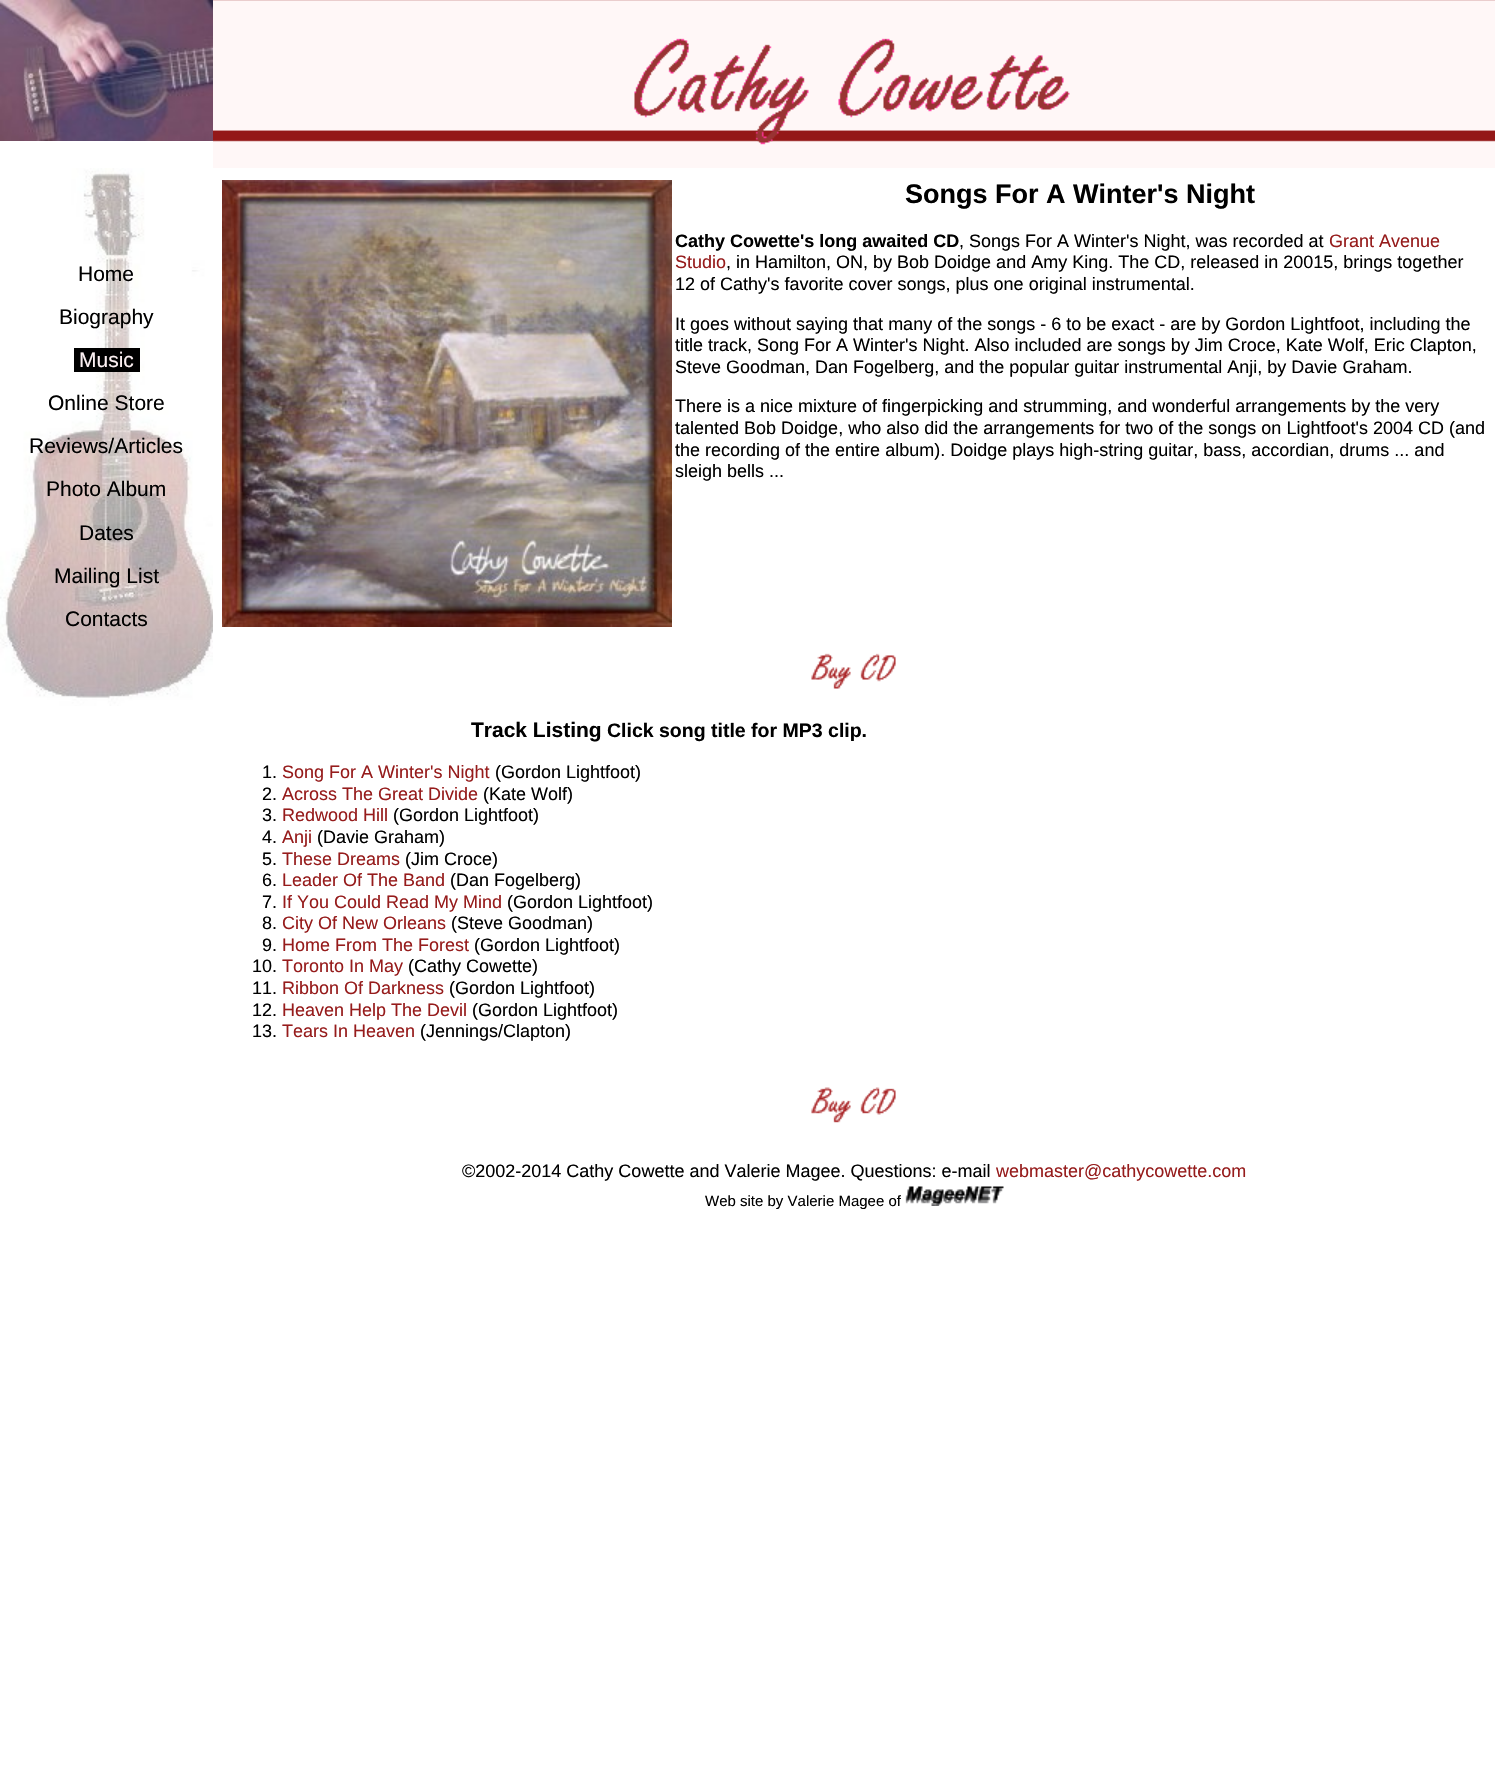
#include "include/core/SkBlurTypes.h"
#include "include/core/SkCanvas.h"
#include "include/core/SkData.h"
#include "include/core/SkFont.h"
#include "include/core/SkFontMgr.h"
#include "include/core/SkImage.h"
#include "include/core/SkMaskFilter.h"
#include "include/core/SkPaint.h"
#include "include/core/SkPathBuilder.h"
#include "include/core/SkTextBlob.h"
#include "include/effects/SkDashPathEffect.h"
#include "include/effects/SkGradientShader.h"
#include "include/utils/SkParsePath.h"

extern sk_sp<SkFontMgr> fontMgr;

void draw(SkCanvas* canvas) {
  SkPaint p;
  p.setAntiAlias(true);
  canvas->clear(SK_ColorWHITE);
  canvas->drawImageRect(SkImages::DeferredFromEncodedData(SkData::MakeFromFileName("images/1.png")), SkRect::MakeLTRB(0, 0, 213, 141), SkSamplingOptions());
  canvas->drawImageRect(SkImages::DeferredFromEncodedData(SkData::MakeFromFileName("images/2.png")), SkRect::MakeLTRB(213, 0, 1495, 168), SkSamplingOptions());
  canvas->drawImageRect(SkImages::DeferredFromEncodedData(SkData::MakeFromFileName("images/3.png")), SkRect::MakeLTRB(634, 38, 1070, 145), SkSamplingOptions());
  canvas->drawImageRect(SkImages::DeferredFromEncodedData(SkData::MakeFromFileName("images/4.png")), SkRect::MakeLTRB(0, 168, 213, 706), SkSamplingOptions());
  p.setColor(SK_ColorBLACK);
  canvas->drawRect(SkRect::MakeLTRB(74, 348, 140, 372), p);
  canvas->drawImageRect(SkImages::DeferredFromEncodedData(SkData::MakeFromFileName("images/5.png")), SkRect::MakeLTRB(222, 180, 672, 627), SkSamplingOptions());
  canvas->drawImageRect(SkImages::DeferredFromEncodedData(SkData::MakeFromFileName("images/6.png")), SkRect::MakeLTRB(811, 653, 896, 689), SkSamplingOptions());
  canvas->drawImageRect(SkImages::DeferredFromEncodedData(SkData::MakeFromFileName("images/7.png")), SkRect::MakeLTRB(811, 1087, 896, 1123), SkSamplingOptions());
  canvas->drawImageRect(SkImages::DeferredFromEncodedData(SkData::MakeFromFileName("images/8.png")), SkRect::MakeLTRB(905, 1186, 1004, 1206), SkSamplingOptions());
  SkFont font1(fontMgr->matchFamilyStyle("Liberation Sans", SkFontStyle::Normal()), 21);
  font1.setSubpixel(true);
  canvas->drawString("Home", 78, 281, font1, p);
  canvas->drawString("Biography", 59, 324, font1, p);
  p.setColor(SkColorSetRGB(253, 241, 243));
  canvas->drawString("Music", 79, 367, font1, p);
  p.setColor(SK_ColorBLACK);
  canvas->drawString("Online Store", 48, 410, font1, p);
  canvas->drawString("Reviews/Articles", 29, 453, font1, p);
  canvas->drawString("Photo Album", 46, 496, font1, p);
  canvas->drawString("Dates", 79, 540, font1, p);
  canvas->drawString("Mailing List", 54, 583, font1, p);
  canvas->drawString("Contacts", 65, 626, font1, p);
  SkFont font2(fontMgr->matchFamilyStyle("Liberation Sans", SkFontStyle::Bold()), 27);
  font2.setSubpixel(true);
  canvas->drawString("Songs For A Winter's Night", 905, 203, font2, p);
  SkFont font3(fontMgr->matchFamilyStyle("Liberation Sans", SkFontStyle::Bold()), 18);
  font3.setSubpixel(true);
  canvas->drawString("Cathy Cowette's long awaited CD", 675, 247, font3, p);
  SkFont font4(fontMgr->matchFamilyStyle("Liberation Sans", SkFontStyle::Normal()), 18);
  font4.setSubpixel(true);
  canvas->drawString(", Songs For A Winter's Night, was recorded at", 959, 247, font4, p);
  p.setColor(SkColorSetRGB(150, 28, 28));
  canvas->drawString("Grant Avenue", 1329, 247, font4, p);
  canvas->drawString("Studio", 675, 268, font4, p);
  p.setColor(SK_ColorBLACK);
  canvas->drawString(", in Hamilton, ON, by Bob Doidge and Amy King. The CD, released in 20015, brings together", 726, 268, font4, p);
  canvas->drawString("12 of Cathy's favorite cover songs, plus one original instrumental.", 675, 290, font4, p);
  canvas->drawString("It goes without saying that many of the songs - 6 to be exact - are by Gordon Lightfoot, including the", 675, 330, font4, p);
  canvas->drawString("title track, Song For A Winter's Night. Also included are songs by Jim Croce, Kate Wolf, Eric Clapton,", 675, 351, font4, p);
  canvas->drawString("Steve Goodman, Dan Fogelberg, and the popular guitar instrumental Anji, by Davie Graham.", 675, 373, font4, p);
  canvas->drawString("There is a nice mixture of fingerpicking and strumming, and wonderful arrangements by the very", 675, 412, font4, p);
  canvas->drawString("talented Bob Doidge, who also did the arrangements for two of the songs on Lightfoot's 2004 CD (and", 675, 434, font4, p);
  canvas->drawString("the recording of the entire album). Doidge plays high-string guitar, bass, accordian, drums ... and", 675, 456, font4, p);
  canvas->drawString("sleigh bells ...", 675, 477, font4, p);
  SkFont font5(fontMgr->matchFamilyStyle("Liberation Sans", SkFontStyle::Bold()), 21);
  font5.setSubpixel(true);
  canvas->drawString("Track Listing", 471, 737, font5, p);
  SkFont font6(fontMgr->matchFamilyStyle("Liberation Sans", SkFontStyle::Bold()), 19.5f);
  font6.setSubpixel(true);
  canvas->drawString("Click song title for MP3 clip.", 607, 737, font6, p);
  canvas->drawString("1.", 262, 778, font4, p);
  p.setColor(SkColorSetRGB(150, 28, 28));
  canvas->drawString("Song For A Winter's Night", 282, 778, font4, p);
  p.setColor(SK_ColorBLACK);
  canvas->drawString("(Gordon Lightfoot)", 495, 778, font4, p);
  canvas->drawString("2.", 262, 800, font4, p);
  p.setColor(SkColorSetRGB(150, 28, 28));
  canvas->drawString("Across The Great Divide", 282, 800, font4, p);
  p.setColor(SK_ColorBLACK);
  canvas->drawString("(Kate Wolf)", 483, 800, font4, p);
  canvas->drawString("3.", 262, 821, font4, p);
  p.setColor(SkColorSetRGB(150, 28, 28));
  canvas->drawString("Redwood Hill", 282, 821, font4, p);
  p.setColor(SK_ColorBLACK);
  canvas->drawString("(Gordon Lightfoot)", 393, 821, font4, p);
  canvas->drawString("4.", 262, 843, font4, p);
  p.setColor(SkColorSetRGB(150, 28, 28));
  canvas->drawString("Anji", 282, 843, font4, p);
  p.setColor(SK_ColorBLACK);
  canvas->drawString("(Davie Graham)", 317, 843, font4, p);
  canvas->drawString("5.", 262, 865, font4, p);
  p.setColor(SkColorSetRGB(150, 28, 28));
  canvas->drawString("These Dreams", 282, 865, font4, p);
  p.setColor(SK_ColorBLACK);
  canvas->drawString("(Jim Croce)", 405, 865, font4, p);
  canvas->drawString("6.", 262, 886, font4, p);
  p.setColor(SkColorSetRGB(150, 28, 28));
  canvas->drawString("Leader Of The Band", 282, 886, font4, p);
  p.setColor(SK_ColorBLACK);
  canvas->drawString("(Dan Fogelberg)", 450, 886, font4, p);
  canvas->drawString("7.", 262, 908, font4, p);
  p.setColor(SkColorSetRGB(150, 28, 28));
  canvas->drawString("If You Could Read My Mind", 282, 908, font4, p);
  p.setColor(SK_ColorBLACK);
  canvas->drawString("(Gordon Lightfoot)", 507, 908, font4, p);
  canvas->drawString("8.", 262, 929, font4, p);
  p.setColor(SkColorSetRGB(150, 28, 28));
  canvas->drawString("City Of New Orleans", 282, 929, font4, p);
  p.setColor(SK_ColorBLACK);
  canvas->drawString("(Steve Goodman)", 451, 929, font4, p);
  canvas->drawString("9.", 262, 951, font4, p);
  p.setColor(SkColorSetRGB(150, 28, 28));
  canvas->drawString("Home From The Forest", 282, 951, font4, p);
  p.setColor(SK_ColorBLACK);
  canvas->drawString("(Gordon Lightfoot)", 474, 951, font4, p);
  canvas->drawString("10.", 252, 972, font4, p);
  p.setColor(SkColorSetRGB(150, 28, 28));
  canvas->drawString("Toronto In May", 282, 972, font4, p);
  p.setColor(SK_ColorBLACK);
  canvas->drawString("(Cathy Cowette)", 408, 972, font4, p);
  canvas->drawString("11.", 252, 994, font4, p);
  p.setColor(SkColorSetRGB(150, 28, 28));
  canvas->drawString("Ribbon Of Darkness", 282, 994, font4, p);
  p.setColor(SK_ColorBLACK);
  canvas->drawString("(Gordon Lightfoot)", 449, 994, font4, p);
  canvas->drawString("12.", 252, 1016, font4, p);
  p.setColor(SkColorSetRGB(150, 28, 28));
  canvas->drawString("Heaven Help The Devil", 282, 1016, font4, p);
  p.setColor(SK_ColorBLACK);
  canvas->drawString("(Gordon Lightfoot)", 472, 1016, font4, p);
  canvas->drawString("13.", 252, 1037, font4, p);
  p.setColor(SkColorSetRGB(150, 28, 28));
  canvas->drawString("Tears In Heaven", 282, 1037, font4, p);
  p.setColor(SK_ColorBLACK);
  canvas->drawString("(Jennings/Clapton)", 420, 1037, font4, p);
  canvas->drawString("©2002-2014 Cathy Cowette and Valerie Magee. Questions: e-mail", 462, 1177, font4, p);
  p.setColor(SkColorSetRGB(150, 28, 28));
  canvas->drawString("webmaster@cathycowette.com", 996, 1177, font4, p);
  SkFont font7(fontMgr->matchFamilyStyle("Liberation Sans", SkFontStyle::Normal()), 15);
  font7.setSubpixel(true);
  p.setColor(SK_ColorBLACK);
  canvas->drawString("Web site by Valerie Magee of", 705, 1206, font7, p);
}
